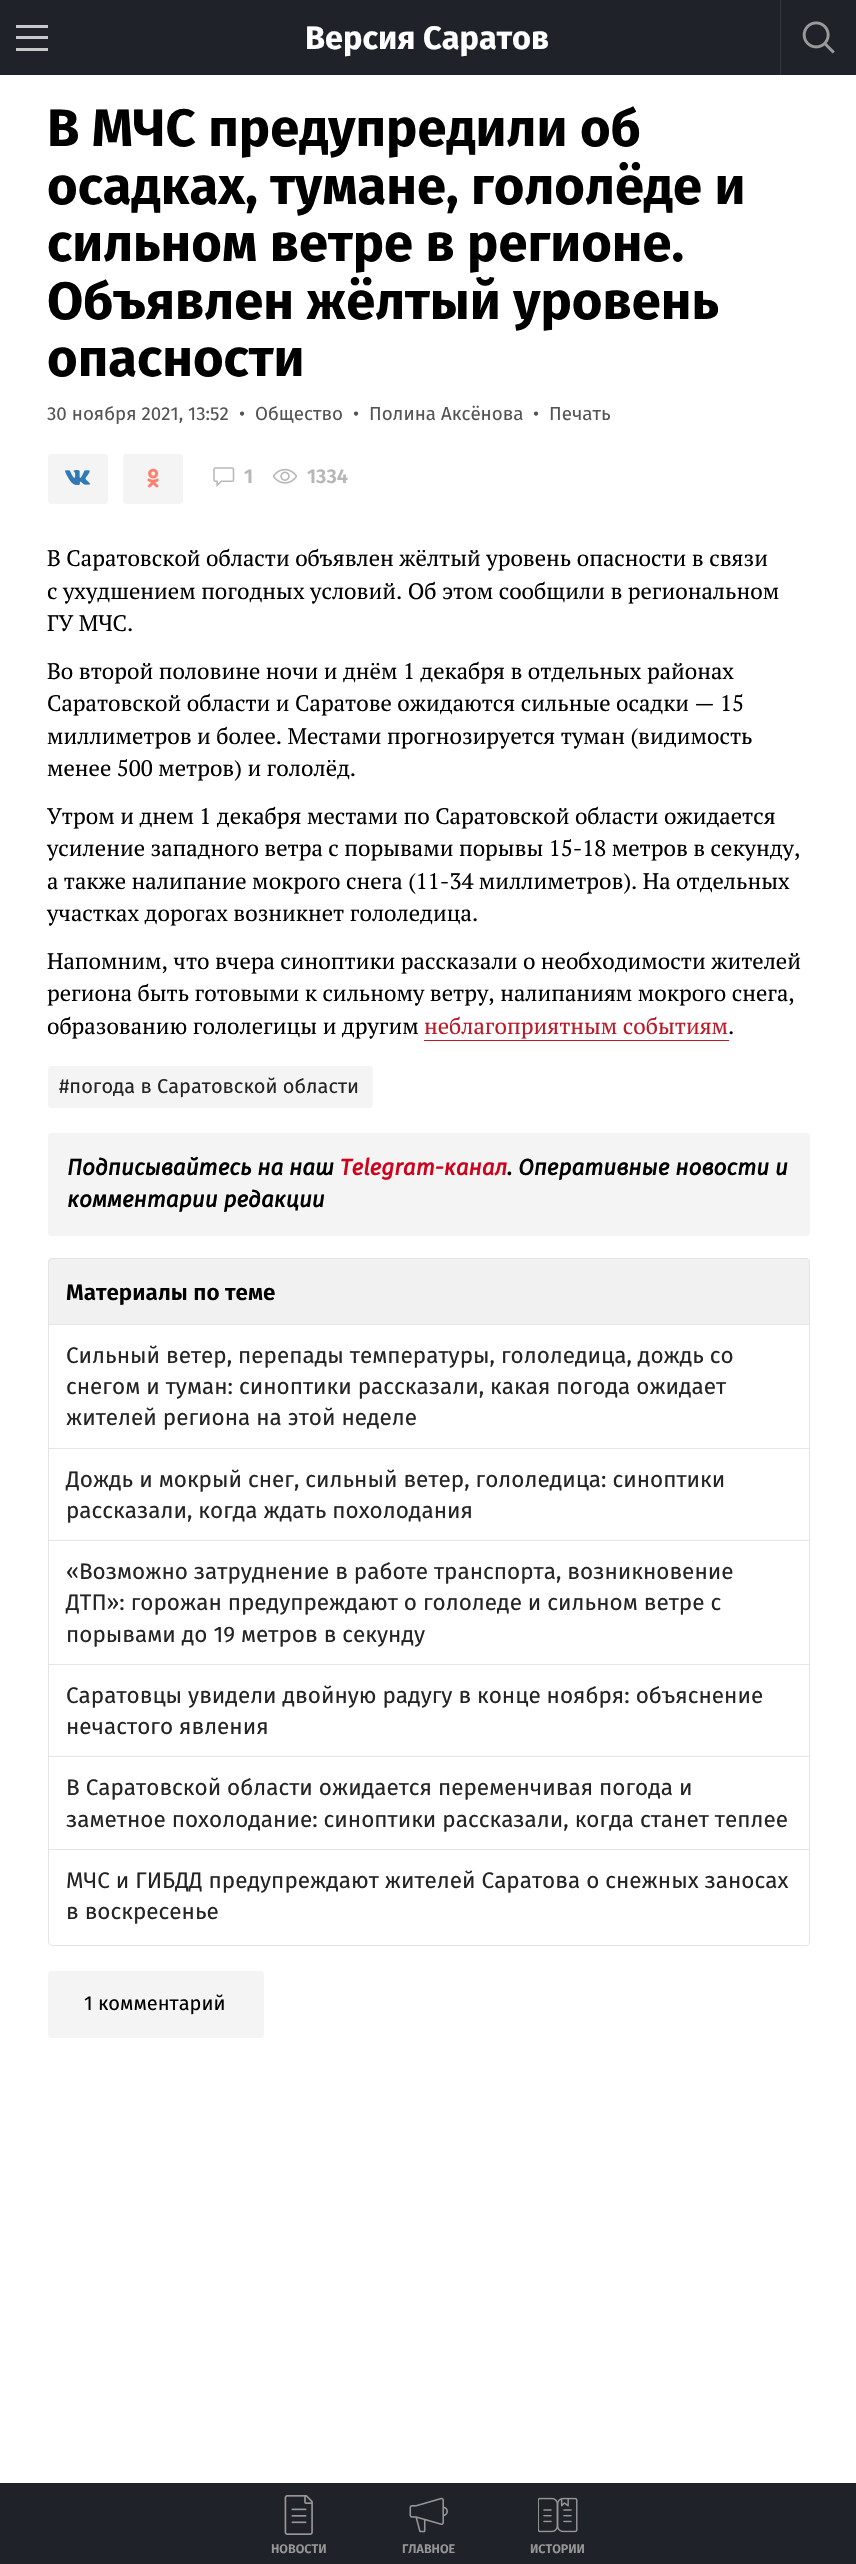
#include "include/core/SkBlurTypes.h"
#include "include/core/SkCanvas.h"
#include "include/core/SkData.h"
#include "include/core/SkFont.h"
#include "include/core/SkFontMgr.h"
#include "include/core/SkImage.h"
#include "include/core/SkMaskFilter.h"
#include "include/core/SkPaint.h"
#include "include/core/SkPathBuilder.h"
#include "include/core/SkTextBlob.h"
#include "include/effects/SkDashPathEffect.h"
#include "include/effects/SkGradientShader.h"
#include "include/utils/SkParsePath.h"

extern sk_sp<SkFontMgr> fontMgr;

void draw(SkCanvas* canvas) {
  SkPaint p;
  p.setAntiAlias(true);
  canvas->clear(SK_ColorWHITE);
  p.setColor(SkColorSetRGB(31, 34, 40));
  canvas->drawRect(SkRect::MakeLTRB(0, 0, 856, 75), p);
  p.setColor(SkColorSetRGB(199, 200, 201));
  canvas->drawRect(SkRect::MakeLTRB(16, 36, 48, 39), p);
  canvas->drawRect(SkRect::MakeLTRB(16, 25, 48, 28), p);
  canvas->drawRect(SkRect::MakeLTRB(16, 48, 48, 51), p);
  p.setColor(SkColorSetRGB(52, 55, 61));
  canvas->drawRect(SkRect::MakeLTRB(780, 0, 781, 75), p);
  canvas->drawImageRect(SkImages::DeferredFromEncodedData(SkData::MakeFromFileName("images/1.png")), SkRect::MakeLTRB(802, 21, 835, 54), SkSamplingOptions());
  p.setColor(SkColorSetRGB(244, 244, 244));
  canvas->drawRoundRect(SkRect::MakeLTRB(48, 454, 108, 504), 4, 4, p);
  canvas->drawImageRect(SkImages::DeferredFromEncodedData(SkData::MakeFromFileName("images/2.png")), SkRect::MakeLTRB(65, 470, 90, 485), SkSamplingOptions());
  canvas->drawRoundRect(SkRect::MakeLTRB(123, 454, 183, 504), 4, 4, p);
  canvas->drawImageRect(SkImages::DeferredFromEncodedData(SkData::MakeFromFileName("images/3.png")), SkRect::MakeLTRB(147, 468, 159, 488), SkSamplingOptions());
  canvas->drawImageRect(SkImages::DeferredFromEncodedData(SkData::MakeFromFileName("images/4.png")), SkRect::MakeLTRB(213, 467, 235, 487), SkSamplingOptions());
  canvas->drawImageRect(SkImages::DeferredFromEncodedData(SkData::MakeFromFileName("images/5.png")), SkRect::MakeLTRB(273, 468, 297, 484), SkSamplingOptions());
  p.setColor(SkColorSetRGB(188, 25, 39));
  canvas->drawRect(SkRect::MakeLTRB(424, 1040, 729, 1041), p);
  p.setColor(SkColorSetRGB(244, 244, 244));
  canvas->drawRoundRect(SkRect::MakeLTRB(48, 1066, 373, 1108), 4, 4, p);
  canvas->drawRoundRect(SkRect::MakeLTRB(48, 1133, 810, 1236), 4, 4, p);
  p.setStyle(SkPaint::kStroke_Style);
  p.setStrokeWidth(1);
  p.setColor(SkColorSetRGB(229, 229, 229));
  canvas->drawRoundRect(SkRect::MakeLTRB(48.5f, 1258.5f, 809.5f, 1945.5f), 3.5f, 3.5f, p);
  p.setStyle(SkPaint::kFill_Style);
  p.setColor(SkColorSetRGB(241, 241, 241));
  canvas->drawPath(SkPathBuilder().moveTo(52, 1258.5f).lineTo(806, 1258.5f).cubicTo(808, 1258.5f, 809.5f, 1260, 809.5f, 1262).lineTo(809.5f, 1324.5f).lineTo(48.5f, 1324.5f).lineTo(48.5f, 1262).cubicTo(48.5f, 1260, 50, 1258.5f, 52, 1258.5f).close().detach(), p);
  p.setStyle(SkPaint::kStroke_Style);
  p.setColor(SkColorSetRGB(229, 229, 229));
  canvas->drawPath(SkPathBuilder().moveTo(52, 1258.5f).lineTo(806, 1258.5f).cubicTo(808, 1258.5f, 809.5f, 1260, 809.5f, 1262).lineTo(809.5f, 1324.5f).lineTo(48.5f, 1324.5f).lineTo(48.5f, 1262).cubicTo(48.5f, 1260, 50, 1258.5f, 52, 1258.5f).close().detach(), p);
  p.setStyle(SkPaint::kFill_Style);
  canvas->drawRect(SkRect::MakeLTRB(48, 1448, 810, 1449), p);
  canvas->drawRect(SkRect::MakeLTRB(48, 1540, 810, 1541), p);
  canvas->drawRect(SkRect::MakeLTRB(48, 1664, 810, 1665), p);
  canvas->drawRect(SkRect::MakeLTRB(48, 1756, 810, 1757), p);
  canvas->drawRect(SkRect::MakeLTRB(48, 1849, 810, 1850), p);
  p.setColor(SkColorSetRGB(244, 244, 244));
  canvas->drawRoundRect(SkRect::MakeLTRB(48, 1971, 264, 2038), 4, 4, p);
  p.setColor(SkColorSetRGB(31, 34, 40));
  canvas->drawRect(SkRect::MakeLTRB(0, 2483, 856, 2564), p);
  canvas->drawImageRect(SkImages::DeferredFromEncodedData(SkData::MakeFromFileName("images/6.png")), SkRect::MakeLTRB(284, 2495, 313, 2535), SkSamplingOptions());
  canvas->drawImageRect(SkImages::DeferredFromEncodedData(SkData::MakeFromFileName("images/7.png")), SkRect::MakeLTRB(409, 2497, 448, 2533), SkSamplingOptions());
  canvas->drawImageRect(SkImages::DeferredFromEncodedData(SkData::MakeFromFileName("images/8.png")), SkRect::MakeLTRB(538, 2497, 578, 2533), SkSamplingOptions());
  SkFont font1(fontMgr->matchFamilyStyle("Fira Sans", SkFontStyle::Bold()), 32.5f);
  font1.setSubpixel(true);
  p.setColor(SK_ColorWHITE);
  canvas->drawString("Версия Саратов", 305, 49, font1, p);
  SkFont font2(fontMgr->matchFamilyStyle("Fira Sans", SkFontStyle::Bold()), 52.5f);
  font2.setSubpixel(true);
  p.setColor(SK_ColorBLACK);
  canvas->drawString("В МЧС предупредили об", 47, 146, font2, p);
  canvas->drawString("осадках, тумане, гололёде и", 47, 204, font2, p);
  canvas->drawString("сильном ветре в регионе.", 47, 261, font2, p);
  canvas->drawString("Объявлен жёлтый уровень", 47, 319, font2, p);
  canvas->drawString("опасности", 47, 376, font2, p);
  SkFont font3(fontMgr->matchFamilyStyle("Fira Sans", SkFontStyle::Normal()), 18.75f);
  font3.setSubpixel(true);
  p.setColor(SkColorSetRGB(84, 84, 84));
  canvas->drawString("30 ноября 2021, 13:52", 47, 420, font3, p);
  canvas->drawString("•", 239, 420, font3, p);
  canvas->drawString("Общество", 255, 420, font3, p);
  canvas->drawString("•", 353, 420, font3, p);
  canvas->drawString("Полина Аксёнова", 369, 420, font3, p);
  canvas->drawString("•", 533, 420, font3, p);
  canvas->drawString("Печать", 549, 420, font3, p);
  SkFont font4(fontMgr->matchFamilyStyle("Fira Sans", SkFontStyle(600, SkFontStyle::kNormal_Width, SkFontStyle::kUpright_Slant)), 20);
  font4.setSubpixel(true);
  p.setColor(SkColorSetRGB(183, 183, 183));
  canvas->drawString("1", 244, 483, font4, p);
  canvas->drawString("1334", 307, 483, font4, p);
  SkFont font5(fontMgr->matchFamilyStyle("PT Serif", SkFontStyle::Normal()), 22.5f);
  font5.setSubpixel(true);
  p.setColor(SK_ColorBLACK);
  canvas->drawString("В Саратовской области объявлен жёлтый уровень опасности в связи", 47, 566, font5, p);
  canvas->drawString("с ухудшением погодных условий. Об этом сообщили в региональном", 47, 599, font5, p);
  canvas->drawString("ГУ МЧС.", 47, 631, font5, p);
  canvas->drawString("Во второй половине ночи и днём 1 декабря в отдельных районах", 47, 679, font5, p);
  canvas->drawString("Саратовской области и Саратове ожидаются сильные осадки — 15", 47, 711, font5, p);
  canvas->drawString("миллиметров и более. Местами прогнозируется туман (видимость", 47, 744, font5, p);
  canvas->drawString("менее 500 метров) и гололёд.", 47, 776, font5, p);
  canvas->drawString("Утром и днем 1 декабря местами по Саратовской области ожидается", 47, 824, font5, p);
  canvas->drawString("усиление западного ветра с порывами порывы 15-18 метров в секунду,", 47, 856, font5, p);
  canvas->drawString("а также налипание мокрого снега (11-34 миллиметров). На отдельных", 47, 889, font5, p);
  canvas->drawString("участках дорогах возникнет гололедица.", 47, 921, font5, p);
  canvas->drawString("Напомним, что вчера синоптики рассказали о необходимости жителей", 47, 969, font5, p);
  canvas->drawString("региона быть готовыми к сильному ветру, налипаниям мокрого снега,", 47, 1001, font5, p);
  canvas->drawString("образованию гололегицы и другим", 47, 1034, font5, p);
  p.setColor(SkColorSetRGB(188, 25, 39));
  canvas->drawString("неблагоприятным событиям", 424, 1034, font5, p);
  p.setColor(SK_ColorBLACK);
  canvas->drawString(".", 728, 1034, font5, p);
  SkFont font6(fontMgr->matchFamilyStyle("Fira Sans", SkFontStyle::Normal()), 20);
  font6.setSubpixel(true);
  p.setColor(SkColorSetRGB(36, 36, 36));
  canvas->drawString("#погода в Саратовской области", 59, 1093, font6, p);
  SkFont font7(fontMgr->matchFamilyStyle("Fira Sans", SkFontStyle::BoldItalic()), 22.5f);
  font7.setSubpixel(true);
  p.setColor(SK_ColorBLACK);
  canvas->drawString("Подписывайтесь на наш", 67, 1175, font7, p);
  p.setColor(SkColorSetRGB(208, 2, 27));
  canvas->drawString("Telegram-канал", 340, 1175, font7, p);
  p.setColor(SK_ColorBLACK);
  canvas->drawString(". Оперативные новости и", 507, 1175, font7, p);
  canvas->drawString("комментарии редакции", 67, 1207, font7, p);
  SkFont font8(fontMgr->matchFamilyStyle("Fira Sans", SkFontStyle(600, SkFontStyle::kNormal_Width, SkFontStyle::kUpright_Slant)), 22.5f);
  font8.setSubpixel(true);
  canvas->drawString("Материалы по теме", 66, 1300, font8, p);
  SkFont font9(fontMgr->matchFamilyStyle("Fira Sans", SkFontStyle::Normal()), 22.5f);
  font9.setSubpixel(true);
  p.setColor(SkColorSetRGB(36, 36, 36));
  canvas->drawString("Сильный ветер, перепады температуры, гололедица, дождь со", 66, 1363, font9, p);
  canvas->drawString("снегом и туман: синоптики рассказали, какая погода ожидает", 66, 1394, font9, p);
  canvas->drawString("жителей региона на этой неделе", 66, 1425, font9, p);
  canvas->drawString("Дождь и мокрый снег, сильный ветер, гололедица: синоптики", 66, 1487, font9, p);
  canvas->drawString("рассказали, когда ждать похолодания", 66, 1518, font9, p);
  canvas->drawString("«Возможно затруднение в работе транспорта, возникновение", 66, 1579, font9, p);
  canvas->drawString("ДТП»: горожан предупреждают о гололеде и сильном ветре с", 66, 1610, font9, p);
  canvas->drawString("порывами до 19 метров в секунду", 66, 1642, font9, p);
  canvas->drawString("Саратовцы увидели двойную радугу в конце ноября: объяснение", 66, 1703, font9, p);
  canvas->drawString("нечастого явления", 66, 1734, font9, p);
  canvas->drawString("В Саратовской области ожидается переменчивая погода и", 66, 1795, font9, p);
  canvas->drawString("заметное похолодание: синоптики рассказали, когда станет теплее", 66, 1827, font9, p);
  canvas->drawString("МЧС и ГИБДД предупреждают жителей Саратова о снежных заносах", 66, 1888, font9, p);
  canvas->drawString("в воскресенье", 66, 1919, font9, p);
  p.setColor(SK_ColorBLACK);
  canvas->drawString("1 комментарий", 84, 2010, font6, p);
  SkFont font10(fontMgr->matchFamilyStyle("Fira Sans", SkFontStyle(600, SkFontStyle::kNormal_Width, SkFontStyle::kUpright_Slant)), 12.5f);
  font10.setSubpixel(true);
  p.setColor(SkColorSetRGB(150, 150, 150));
  canvas->drawString("НОВОСТИ", 271, 2553, font10, p);
  canvas->drawString("ГЛАВНОЕ", 402, 2553, font10, p);
  canvas->drawString("ИСТОРИИ", 530, 2553, font10, p);
}
